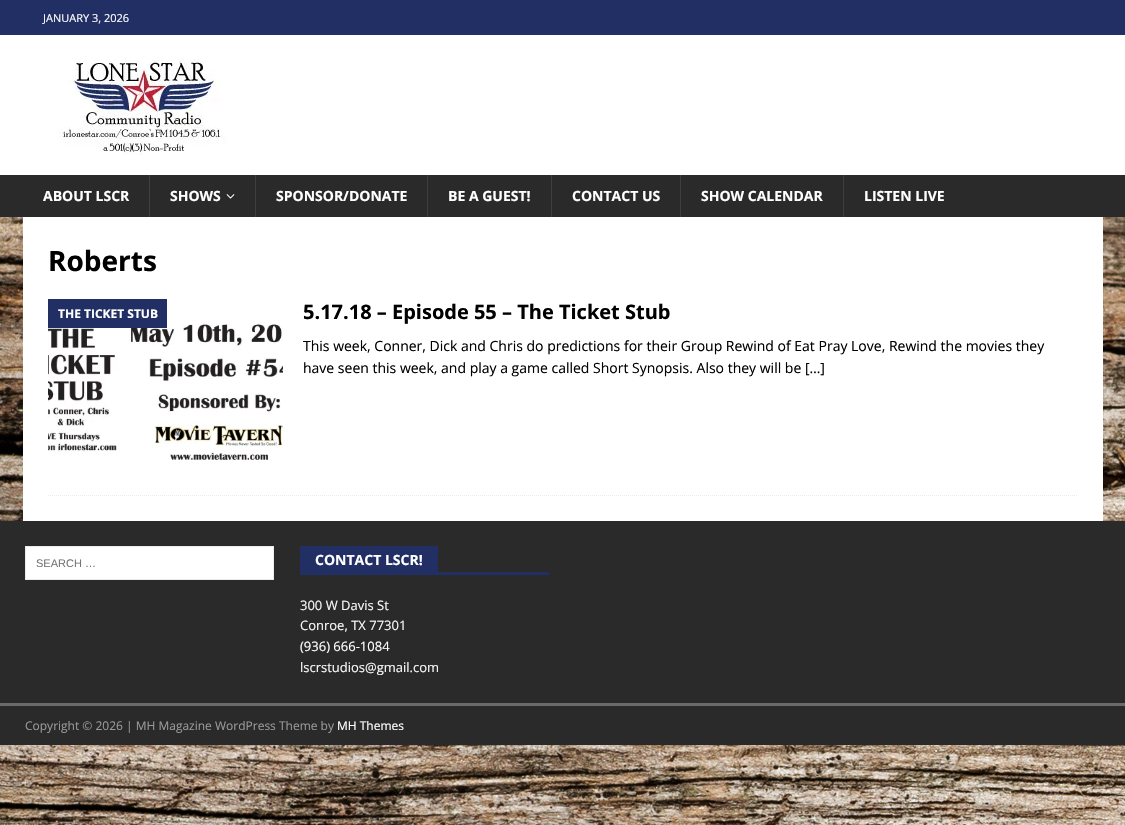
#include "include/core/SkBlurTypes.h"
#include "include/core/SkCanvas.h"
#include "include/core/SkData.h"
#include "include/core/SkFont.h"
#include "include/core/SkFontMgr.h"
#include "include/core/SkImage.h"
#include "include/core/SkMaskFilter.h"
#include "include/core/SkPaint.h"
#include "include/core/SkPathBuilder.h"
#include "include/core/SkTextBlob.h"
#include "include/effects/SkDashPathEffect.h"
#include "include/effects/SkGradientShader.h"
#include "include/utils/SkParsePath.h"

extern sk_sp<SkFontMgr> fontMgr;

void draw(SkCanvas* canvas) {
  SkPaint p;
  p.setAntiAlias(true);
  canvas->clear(SK_ColorWHITE);
  canvas->drawImageRect(SkImages::DeferredFromEncodedData(SkData::MakeFromFileName("images/1.png")), SkRect::MakeLTRB(0, 217, 1125, 825), SkSamplingOptions());
  p.setColor(SkColorSetRGB(33, 47, 100));
  canvas->drawRect(SkRect::MakeLTRB(0, 0, 1125, 35), p);
  canvas->drawImageRect(SkImages::DeferredFromEncodedData(SkData::MakeFromFileName("images/2.png")), SkRect::MakeLTRB(59, 59, 227, 155), SkSamplingOptions());
  p.setColor(SkColorSetRGB(42, 42, 42));
  canvas->drawRect(SkRect::MakeLTRB(0, 175, 1125, 217), p);
  p.setColor(SkColorSetRGB(63, 63, 63));
  canvas->drawRect(SkRect::MakeLTRB(149, 175, 150, 217), p);
  canvas->drawImageRect(SkImages::DeferredFromEncodedData(SkData::MakeFromFileName("images/3.png")), SkRect::MakeLTRB(226, 194, 235, 199), SkSamplingOptions());
  canvas->drawRect(SkRect::MakeLTRB(255, 175, 256, 217), p);
  canvas->drawRect(SkRect::MakeLTRB(427, 175, 428, 217), p);
  canvas->drawRect(SkRect::MakeLTRB(551, 175, 552, 217), p);
  canvas->drawRect(SkRect::MakeLTRB(680, 175, 681, 217), p);
  canvas->drawRect(SkRect::MakeLTRB(843, 175, 844, 217), p);
  p.setColor(SK_ColorWHITE);
  canvas->drawRect(SkRect::MakeLTRB(23, 217, 1103, 521), p);
  p.setStyle(SkPaint::kStroke_Style);
  p.setStrokeWidth(1);
  p.setColor(SkColorSetRGB(235, 235, 235));
  p.setPathEffect(SkDashPathEffect::Make({{1, 1}}, 0));
  canvas->drawPath(SkPathBuilder().moveTo(48, 495.5f).lineTo(1078, 495.5f).detach(), p);
  p.setPathEffect(nullptr);
  canvas->drawImageRect(SkImages::DeferredFromEncodedData(SkData::MakeFromFileName("images/4.png")), SkRect::MakeLTRB(48, 322, 283, 460), SkSamplingOptions());
  p.setStyle(SkPaint::kFill_Style);
  p.setColor(SkColorSetRGB(33, 47, 100));
  canvas->drawRect(SkRect::MakeLTRB(48, 299, 167, 328), p);
  p.setColor(SkColorSetRGB(42, 42, 42));
  canvas->drawRect(SkRect::MakeLTRB(0, 521, 1125, 703), p);
  p.setColor(SK_ColorWHITE);
  canvas->drawRect(SkRect::MakeLTRB(25.5f, 546.5f, 273.5f, 579.5f), p);
  p.setStyle(SkPaint::kStroke_Style);
  p.setColor(SkColorSetRGB(235, 235, 235));
  canvas->drawRect(SkRect::MakeLTRB(25.5f, 546.5f, 273.5f, 579.5f), p);
  p.setStyle(SkPaint::kFill_Style);
  p.setColor(SkColorSetRGB(33, 47, 100));
  canvas->drawRect(SkRect::MakeLTRB(300, 572, 549, 575), p);
  canvas->drawRect(SkRect::MakeLTRB(300, 546, 438, 572), p);
  p.setColor(SkColorSetRGB(42, 42, 42));
  canvas->drawRect(SkRect::MakeLTRB(0, 706, 1125, 745), p);
  p.setColor(SkColorSetRGB(106, 106, 106));
  canvas->drawRect(SkRect::MakeLTRB(0, 703, 1125, 706), p);
  SkFont font1(fontMgr->matchFamilyStyle("Open Sans", SkFontStyle::Normal()), 11);
  font1.setSubpixel(true);
  p.setColor(SK_ColorWHITE);
  canvas->drawString("JANUARY 3, 2026", 43, 22, font1, p);
  SkFont font2(fontMgr->matchFamilyStyle("Open Sans", SkFontStyle::Bold()), 14);
  font2.setSubpixel(true);
  canvas->drawString("ABOUT LSCR", 43, 201, font2, p);
  canvas->drawString("SHOWS", 170, 201, font2, p);
  canvas->drawString("SPONSOR/DONATE", 276, 201, font2, p);
  canvas->drawString("BE A GUEST!", 448, 201, font2, p);
  canvas->drawString("CONTACT US", 572, 201, font2, p);
  canvas->drawString("SHOW CALENDAR", 701, 201, font2, p);
  canvas->drawString("LISTEN LIVE", 864, 201, font2, p);
  SkFont font3(fontMgr->matchFamilyStyle("Open Sans", SkFontStyle::Bold()), 28);
  font3.setSubpixel(true);
  p.setColor(SK_ColorBLACK);
  canvas->drawString("Roberts", 48, 271, font3, p);
  SkFont font4(fontMgr->matchFamilyStyle("Open Sans", SkFontStyle::Bold()), 12);
  font4.setSubpixel(true);
  p.setColor(SK_ColorWHITE);
  canvas->drawString("THE TICKET STUB", 58, 318, font4, p);
  SkFont font5(fontMgr->matchFamilyStyle("Open Sans", SkFontStyle::Bold()), 20);
  font5.setSubpixel(true);
  p.setColor(SK_ColorBLACK);
  canvas->drawString("5.17.18 – Episode 55 – The Ticket Stub", 303, 319, font5, p);
  SkFont font6(fontMgr->matchFamilyStyle("Open Sans", SkFontStyle::Normal()), 14);
  font6.setSubpixel(true);
  canvas->drawString("This week, Conner, Dick and Chris do predictions for their Group Rewind of Eat Pray Love, Rewind the movies they", 303, 351, font6, p);
  canvas->drawString("have seen this week, and play a game called Short Synopsis. Also they will be […]", 303, 373, font6, p);
  SkFont font7(fontMgr->matchFamilyStyle("Liberation Sans", SkFontStyle::Normal()), 11);
  font7.setSubpixel(true);
  p.setColor(SkColorSetRGB(117, 117, 117));
  canvas->drawString("SEARCH …", 36, 567, font7, p);
  p.setColor(SK_ColorWHITE);
  canvas->drawString("CONTACT LSCR!", 315, 565, font2, p);
  SkFont font8(fontMgr->matchFamilyStyle("Open Sans", SkFontStyle::Normal()), 13);
  font8.setSubpixel(true);
  p.setColor(SkColorSetRGB(247, 247, 247));
  canvas->drawString("300 W Davis St", 300, 610, font8, p);
  canvas->drawString("Conroe, TX 77301", 300, 630, font8, p);
  p.setColor(SK_ColorWHITE);
  canvas->drawString("(936) 666-1084", 300, 651, font8, p);
  p.setColor(SkColorSetRGB(247, 247, 247));
  canvas->drawString("lscrstudios@gmail.com", 300, 672, font8, p);
  SkFont font9(fontMgr->matchFamilyStyle("Open Sans", SkFontStyle::Normal()), 12);
  font9.setSubpixel(true);
  p.setColor(SkColorSetRGB(153, 153, 153));
  canvas->drawString("Copyright © 2026 | MH Magazine WordPress Theme by", 25, 730, font9, p);
  p.setColor(SK_ColorWHITE);
  canvas->drawString("MH Themes", 337, 730, font9, p);
}
